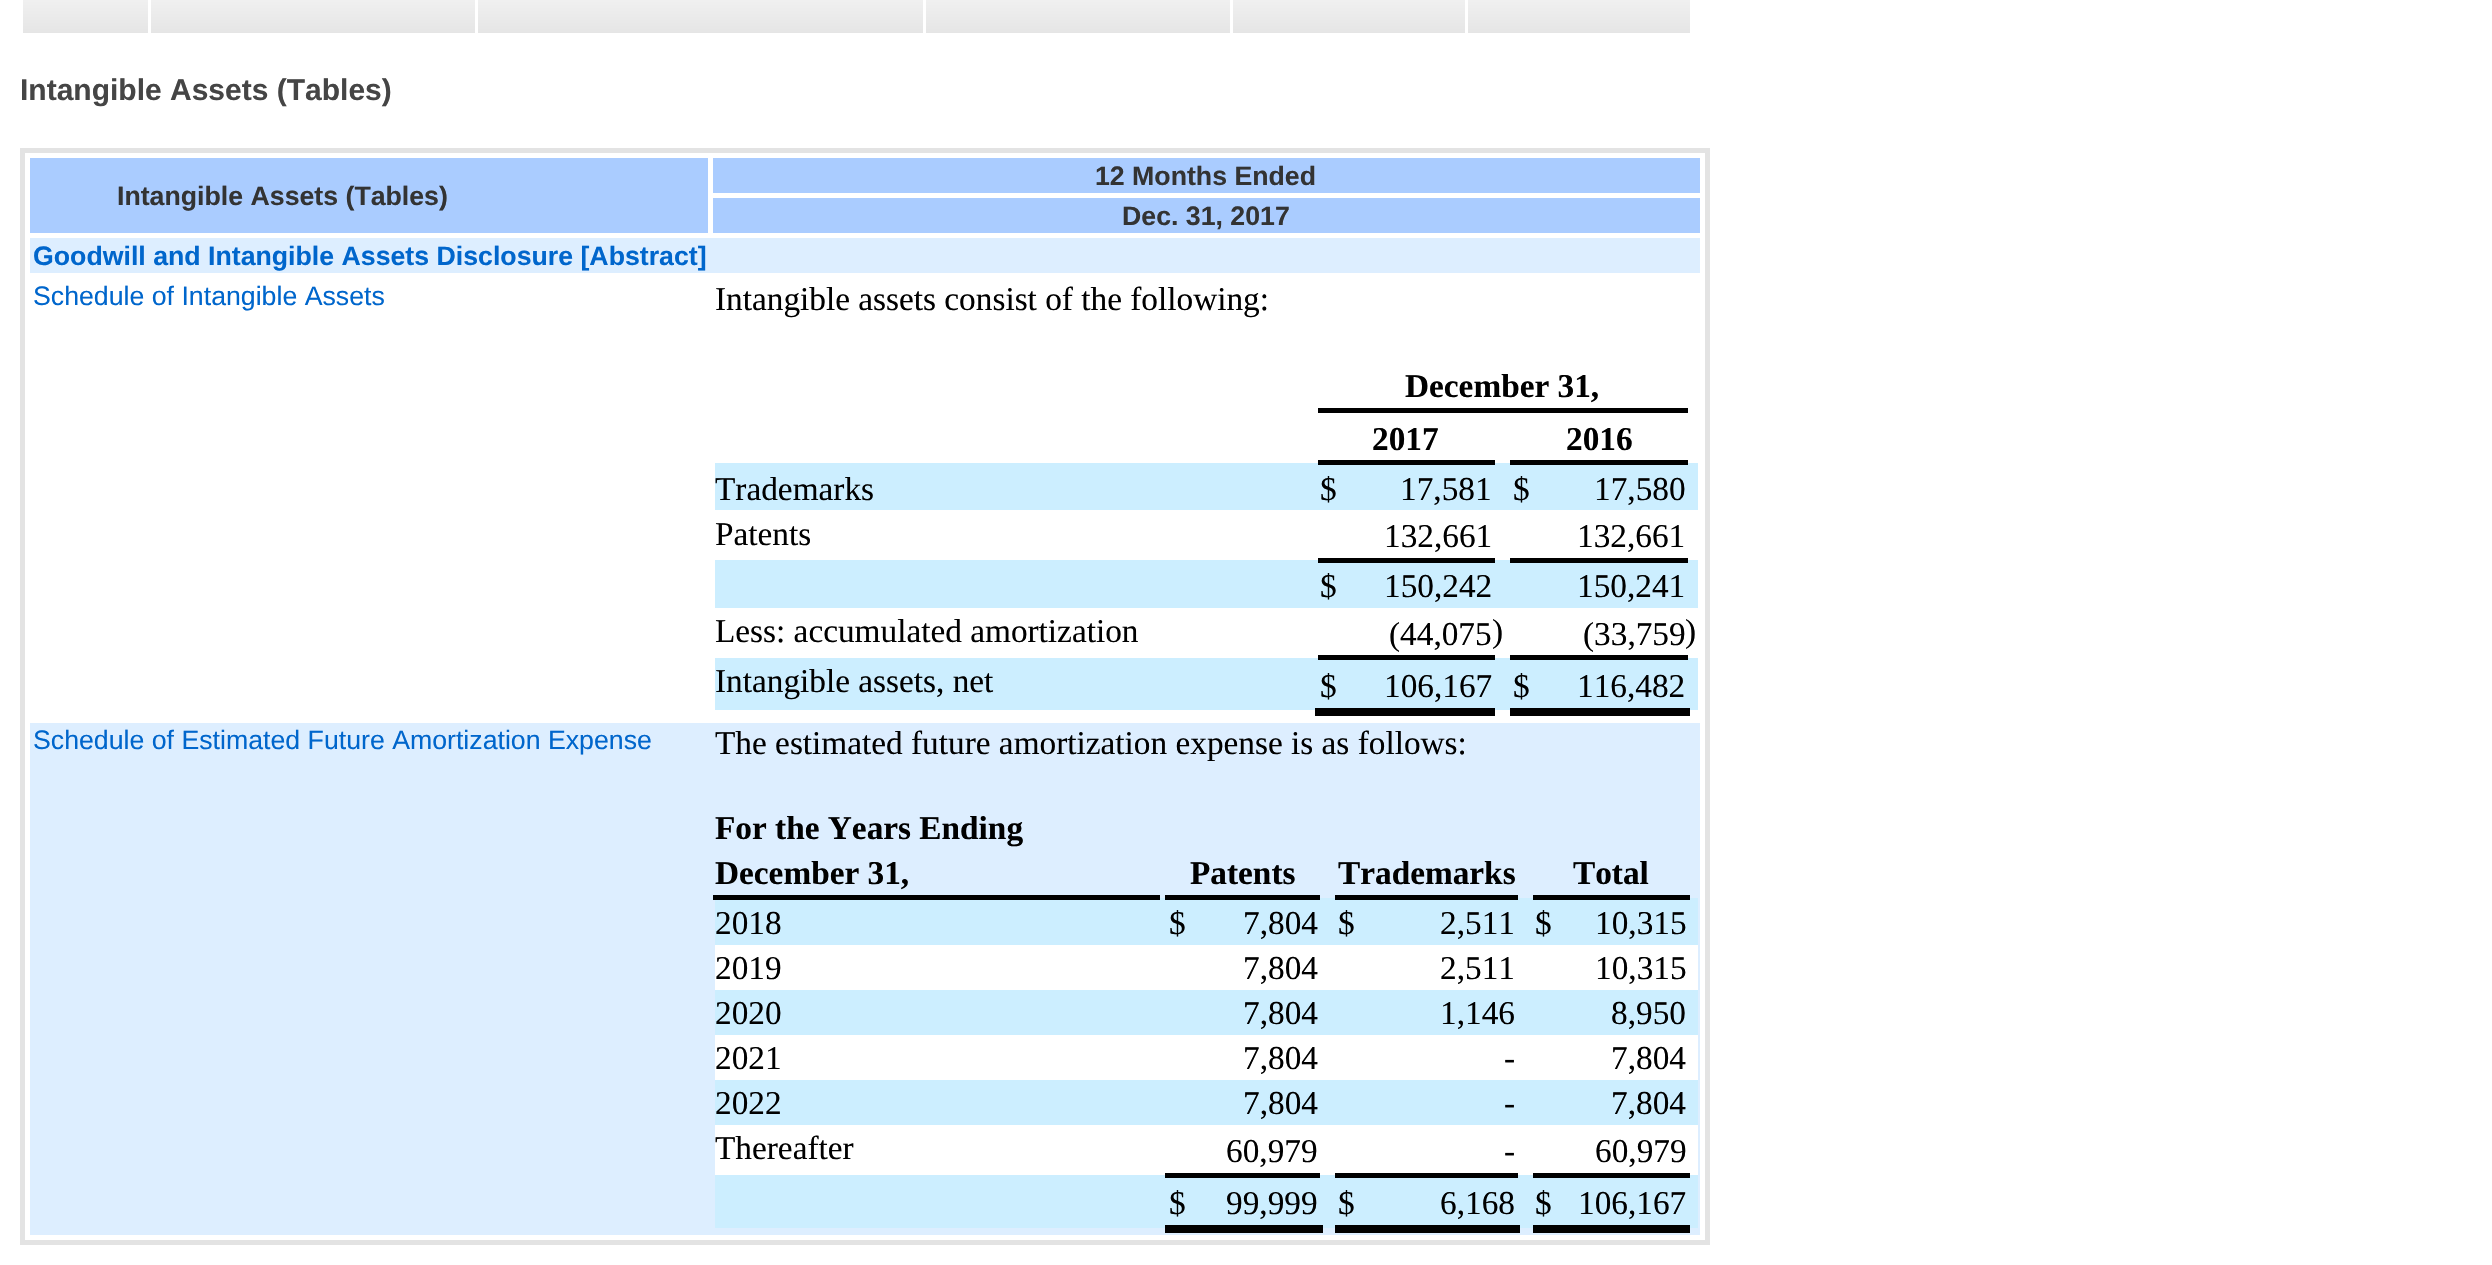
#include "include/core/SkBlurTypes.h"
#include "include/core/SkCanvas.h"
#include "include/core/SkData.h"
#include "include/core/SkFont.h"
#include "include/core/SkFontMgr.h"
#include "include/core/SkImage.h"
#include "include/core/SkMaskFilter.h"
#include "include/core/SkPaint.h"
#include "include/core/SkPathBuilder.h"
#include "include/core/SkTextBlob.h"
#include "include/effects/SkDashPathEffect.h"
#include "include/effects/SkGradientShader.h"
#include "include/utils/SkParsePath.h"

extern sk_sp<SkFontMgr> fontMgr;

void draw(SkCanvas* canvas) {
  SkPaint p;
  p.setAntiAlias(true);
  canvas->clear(SK_ColorWHITE);
  {
    const SkColor colors[] = {SK_ColorWHITE, SkColorSetRGB(229, 229, 229)};
    const float stops[] = {0, 1};
    const SkPoint ends[] = {{85, -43}, {85, 33}};
    p.setShader(SkGradientShader::MakeLinear(ends, colors, stops, 2, SkTileMode::kClamp));
    p.setAlpha(255);
  }
  canvas->drawRect(SkRect::MakeLTRB(23, 0, 148, 33), p);
  {
    const SkColor colors[] = {SK_ColorWHITE, SkColorSetRGB(229, 229, 229)};
    const float stops[] = {0, 1};
    const SkPoint ends[] = {{313, -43}, {313, 33}};
    p.setShader(SkGradientShader::MakeLinear(ends, colors, stops, 2, SkTileMode::kClamp));
    p.setAlpha(255);
  }
  canvas->drawRect(SkRect::MakeLTRB(151, 0, 475, 33), p);
  {
    const SkColor colors[] = {SK_ColorWHITE, SkColorSetRGB(229, 229, 229)};
    const float stops[] = {0, 1};
    const SkPoint ends[] = {{700, -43}, {700, 33}};
    p.setShader(SkGradientShader::MakeLinear(ends, colors, stops, 2, SkTileMode::kClamp));
    p.setAlpha(255);
  }
  canvas->drawRect(SkRect::MakeLTRB(478, 0, 923, 33), p);
  {
    const SkColor colors[] = {SK_ColorWHITE, SkColorSetRGB(229, 229, 229)};
    const float stops[] = {0, 1};
    const SkPoint ends[] = {{1078, -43}, {1078, 33}};
    p.setShader(SkGradientShader::MakeLinear(ends, colors, stops, 2, SkTileMode::kClamp));
    p.setAlpha(255);
  }
  canvas->drawRect(SkRect::MakeLTRB(926, 0, 1230, 33), p);
  {
    const SkColor colors[] = {SK_ColorWHITE, SkColorSetRGB(229, 229, 229)};
    const float stops[] = {0, 1};
    const SkPoint ends[] = {{1349, -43}, {1349, 33}};
    p.setShader(SkGradientShader::MakeLinear(ends, colors, stops, 2, SkTileMode::kClamp));
    p.setAlpha(255);
  }
  canvas->drawRect(SkRect::MakeLTRB(1233, 0, 1465, 33), p);
  {
    const SkColor colors[] = {SK_ColorWHITE, SkColorSetRGB(229, 229, 229)};
    const float stops[] = {0, 1};
    const SkPoint ends[] = {{1579, -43}, {1579, 33}};
    p.setShader(SkGradientShader::MakeLinear(ends, colors, stops, 2, SkTileMode::kClamp));
    p.setAlpha(255);
  }
  canvas->drawRect(SkRect::MakeLTRB(1468, 0, 1690, 33), p);
  p.setStyle(SkPaint::kStroke_Style);
  p.setStrokeWidth(5);
  p.setShader(nullptr);
  p.setColor(SkColorSetRGB(227, 227, 227));
  canvas->drawRect(SkRect::MakeLTRB(22.5f, 150.5f, 1707.5f, 1242.5f), p);
  p.setStyle(SkPaint::kFill_Style);
  p.setColor(SkColorSetRGB(170, 204, 255));
  canvas->drawRect(SkRect::MakeLTRB(713, 158, 1700, 193), p);
  canvas->drawRect(SkRect::MakeLTRB(30, 158, 708, 233), p);
  canvas->drawRect(SkRect::MakeLTRB(713, 198, 1700, 233), p);
  p.setColor(SkColorSetRGB(221, 238, 255));
  canvas->drawRect(SkRect::MakeLTRB(30, 238, 1700, 273), p);
  p.setColor(SK_ColorBLACK);
  canvas->drawRect(SkRect::MakeLTRB(1318, 408, 1688, 413), p);
  p.setColor(SkColorSetRGB(204, 238, 255));
  canvas->drawRect(SkRect::MakeLTRB(715, 463, 1698, 510), p);
  p.setColor(SK_ColorBLACK);
  canvas->drawRect(SkRect::MakeLTRB(1318, 460, 1495, 465), p);
  canvas->drawRect(SkRect::MakeLTRB(1510, 460, 1688, 465), p);
  p.setColor(SkColorSetRGB(204, 238, 255));
  canvas->drawRect(SkRect::MakeLTRB(715, 560, 1698, 608), p);
  p.setColor(SK_ColorBLACK);
  canvas->drawRect(SkRect::MakeLTRB(1318, 558, 1495, 563), p);
  canvas->drawRect(SkRect::MakeLTRB(1510, 558, 1688, 563), p);
  p.setColor(SkColorSetRGB(204, 238, 255));
  canvas->drawRect(SkRect::MakeLTRB(715, 658, 1698, 710), p);
  p.setColor(SK_ColorBLACK);
  canvas->drawRect(SkRect::MakeLTRB(1318, 655, 1495, 660), p);
  canvas->drawRect(SkRect::MakeLTRB(1510, 655, 1688, 660), p);
  canvas->drawRect(SkRect::MakeLTRB(1315, 708, 1495, 716), p);
  canvas->drawRect(SkRect::MakeLTRB(1510, 708, 1690, 716), p);
  p.setColor(SkColorSetRGB(221, 238, 255));
  canvas->drawRect(SkRect::MakeLTRB(30, 723, 1700, 1235), p);
  p.setColor(SkColorSetRGB(204, 238, 255));
  canvas->drawRect(SkRect::MakeLTRB(715, 898, 1698, 945), p);
  p.setColor(SK_ColorBLACK);
  canvas->drawRect(SkRect::MakeLTRB(713, 895, 1160, 900), p);
  canvas->drawRect(SkRect::MakeLTRB(1165, 895, 1320, 900), p);
  canvas->drawRect(SkRect::MakeLTRB(1335, 895, 1518, 900), p);
  canvas->drawRect(SkRect::MakeLTRB(1533, 895, 1690, 900), p);
  p.setColor(SK_ColorWHITE);
  canvas->drawRect(SkRect::MakeLTRB(715, 945, 1698, 990), p);
  p.setColor(SkColorSetRGB(204, 238, 255));
  canvas->drawRect(SkRect::MakeLTRB(715, 990, 1698, 1035), p);
  p.setColor(SK_ColorWHITE);
  canvas->drawRect(SkRect::MakeLTRB(715, 1035, 1698, 1080), p);
  p.setColor(SkColorSetRGB(204, 238, 255));
  canvas->drawRect(SkRect::MakeLTRB(715, 1080, 1698, 1125), p);
  p.setColor(SK_ColorWHITE);
  canvas->drawRect(SkRect::MakeLTRB(715, 1125, 1698, 1175), p);
  p.setColor(SkColorSetRGB(204, 238, 255));
  canvas->drawRect(SkRect::MakeLTRB(715, 1175, 1698, 1228), p);
  p.setColor(SK_ColorBLACK);
  canvas->drawRect(SkRect::MakeLTRB(1165, 1173, 1320, 1178), p);
  canvas->drawRect(SkRect::MakeLTRB(1335, 1173, 1518, 1178), p);
  canvas->drawRect(SkRect::MakeLTRB(1533, 1173, 1690, 1178), p);
  canvas->drawRect(SkRect::MakeLTRB(1165, 1225, 1323, 1233), p);
  canvas->drawRect(SkRect::MakeLTRB(1335, 1225, 1520, 1233), p);
  canvas->drawRect(SkRect::MakeLTRB(1533, 1225, 1690, 1233), p);
  SkFont font1(fontMgr->matchFamilyStyle("Liberation Sans", SkFontStyle::Bold()), 30);
  font1.setSubpixel(true);
  p.setColor(SkColorSetRGB(69, 69, 69));
  canvas->drawString("Intangible Assets (Tables)", 20, 100, font1, p);
  SkFont font2(fontMgr->matchFamilyStyle("Liberation Sans", SkFontStyle::Bold()), 26.7f);
  font2.setSubpixel(true);
  p.setColor(SkColorSetRGB(51, 51, 51));
  canvas->drawString("12 Months Ended", 1095, 185, font2, p);
  canvas->drawString("Intangible Assets (Tables)", 117, 205, font2, p);
  canvas->drawString("Dec. 31, 2017", 1122, 225, font2, p);
  p.setColor(SkColorSetRGB(0, 102, 204));
  canvas->drawString("Goodwill and Intangible Assets Disclosure [Abstract]", 33, 265, font2, p);
  SkFont font3(fontMgr->matchFamilyStyle("Liberation Sans", SkFontStyle::Normal()), 26.7f);
  font3.setSubpixel(true);
  canvas->drawString("Schedule of Intangible Assets", 33, 305, font3, p);
  SkFont font4(fontMgr->matchFamilyStyle("Liberation Serif", SkFontStyle::Normal()), 33.3f);
  font4.setSubpixel(true);
  p.setColor(SK_ColorBLACK);
  canvas->drawString("Intangible assets consist of the following:", 715, 310, font4, p);
  SkFont font5(fontMgr->matchFamilyStyle("Liberation Serif", SkFontStyle::Bold()), 33.3f);
  font5.setSubpixel(true);
  canvas->drawString("December 31,", 1405, 397, font5, p);
  canvas->drawString("2017", 1372, 450, font5, p);
  canvas->drawString("2016", 1566, 450, font5, p);
  canvas->drawString("Trademarks", 715, 500, font4, p);
  canvas->drawString("$", 1320, 500, font4, p);
  canvas->drawString("17,581", 1400, 500, font4, p);
  canvas->drawString("$", 1513, 500, font4, p);
  canvas->drawString("17,580", 1594, 500, font4, p);
  canvas->drawString("Patents", 715, 545, font4, p);
  canvas->drawString("132,661", 1384, 547, font4, p);
  canvas->drawString("132,661", 1577, 547, font4, p);
  canvas->drawString("$", 1320, 597, font4, p);
  canvas->drawString("150,242", 1384, 597, font4, p);
  canvas->drawString("150,241", 1577, 597, font4, p);
  canvas->drawString("Less: accumulated amortization", 715, 642, font4, p);
  canvas->drawString("(44,075", 1389, 645, font4, p);
  canvas->drawString(")", 1492, 642, font4, p);
  canvas->drawString("(33,759", 1583, 645, font4, p);
  canvas->drawString(")", 1685, 642, font4, p);
  canvas->drawString("Intangible assets, net", 715, 692, font4, p);
  canvas->drawString("$", 1320, 697, font4, p);
  canvas->drawString("106,167", 1384, 697, font4, p);
  canvas->drawString("$", 1513, 697, font4, p);
  canvas->drawString("116,482", 1577, 697, font4, p);
  p.setColor(SkColorSetRGB(0, 102, 204));
  canvas->drawString("Schedule of Estimated Future Amortization Expense", 33, 749, font3, p);
  p.setColor(SK_ColorBLACK);
  canvas->drawString("The estimated future amortization expense is as follows:", 715, 754, font4, p);
  canvas->drawString("For the Years Ending", 715, 839, font5, p);
  canvas->drawString("December 31,", 715, 884, font5, p);
  canvas->drawString("Patents", 1190, 884, font5, p);
  canvas->drawString("Trademarks", 1338, 884, font5, p);
  canvas->drawString("Total", 1573, 884, font5, p);
  canvas->drawString("2018", 715, 934, font4, p);
  canvas->drawString("$", 1169, 934, font4, p);
  canvas->drawString("7,804", 1243, 934, font4, p);
  canvas->drawString("$", 1338, 934, font4, p);
  canvas->drawString("2,511", 1440, 934, font4, p);
  canvas->drawString("$", 1535, 934, font4, p);
  canvas->drawString("10,315", 1595, 934, font4, p);
  canvas->drawString("2019", 715, 979, font4, p);
  canvas->drawString("7,804", 1243, 979, font4, p);
  canvas->drawString("2,511", 1440, 979, font4, p);
  canvas->drawString("10,315", 1595, 979, font4, p);
  canvas->drawString("2020", 715, 1024, font4, p);
  canvas->drawString("7,804", 1243, 1024, font4, p);
  canvas->drawString("1,146", 1440, 1024, font4, p);
  canvas->drawString("8,950", 1611, 1024, font4, p);
  canvas->drawString("2021", 715, 1069, font4, p);
  canvas->drawString("7,804", 1243, 1069, font4, p);
  canvas->drawString("-", 1504, 1069, font4, p);
  canvas->drawString("7,804", 1611, 1069, font4, p);
  canvas->drawString("2022", 715, 1114, font4, p);
  canvas->drawString("7,804", 1243, 1114, font4, p);
  canvas->drawString("-", 1504, 1114, font4, p);
  canvas->drawString("7,804", 1611, 1114, font4, p);
  canvas->drawString("Thereafter", 715, 1159, font4, p);
  canvas->drawString("60,979", 1226, 1162, font4, p);
  canvas->drawString("-", 1504, 1162, font4, p);
  canvas->drawString("60,979", 1595, 1162, font4, p);
  canvas->drawString("$", 1169, 1214, font4, p);
  canvas->drawString("99,999", 1226, 1214, font4, p);
  canvas->drawString("$", 1338, 1214, font4, p);
  canvas->drawString("6,168", 1440, 1214, font4, p);
  canvas->drawString("$", 1535, 1214, font4, p);
  canvas->drawString("106,167", 1578, 1214, font4, p);
}
